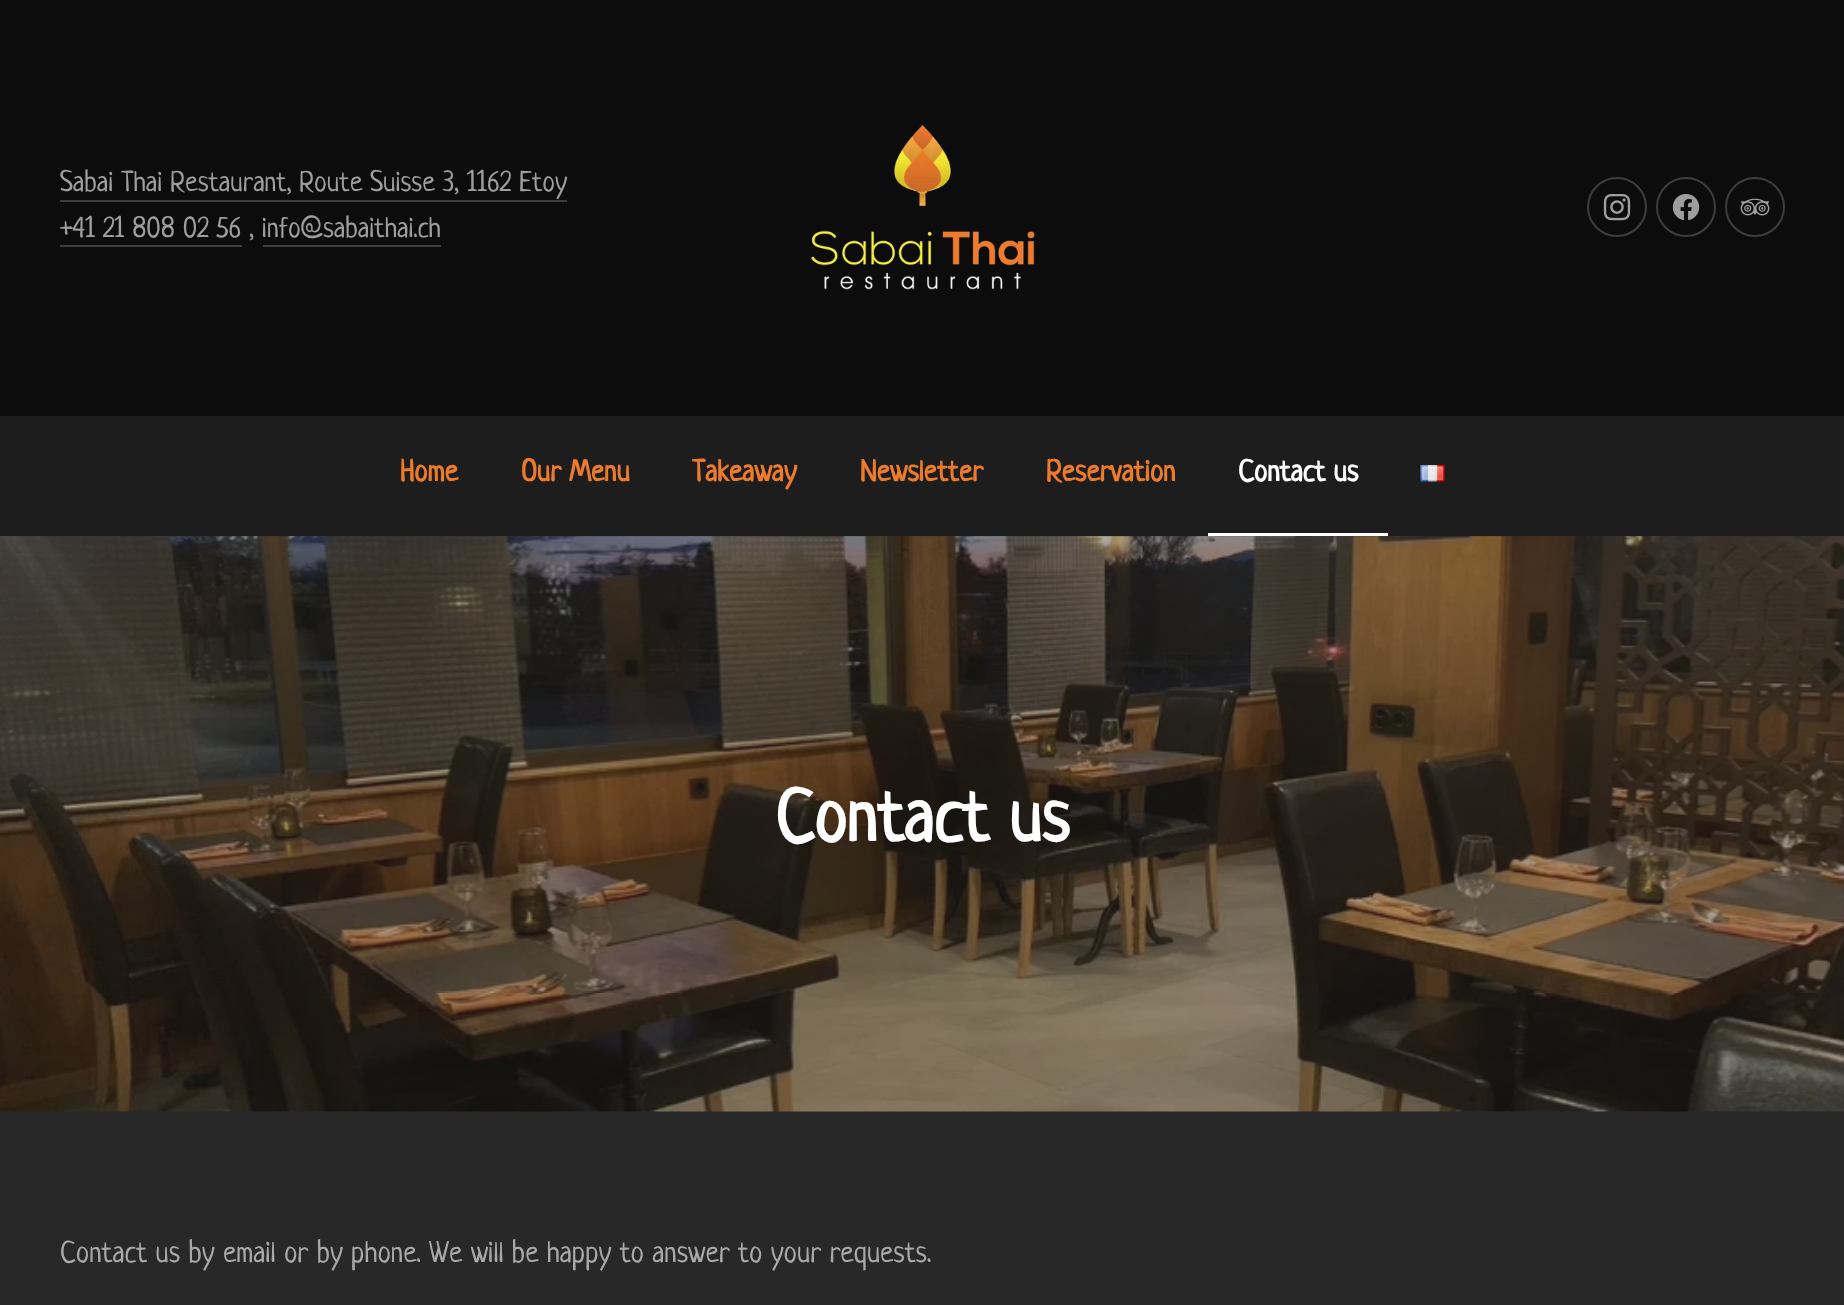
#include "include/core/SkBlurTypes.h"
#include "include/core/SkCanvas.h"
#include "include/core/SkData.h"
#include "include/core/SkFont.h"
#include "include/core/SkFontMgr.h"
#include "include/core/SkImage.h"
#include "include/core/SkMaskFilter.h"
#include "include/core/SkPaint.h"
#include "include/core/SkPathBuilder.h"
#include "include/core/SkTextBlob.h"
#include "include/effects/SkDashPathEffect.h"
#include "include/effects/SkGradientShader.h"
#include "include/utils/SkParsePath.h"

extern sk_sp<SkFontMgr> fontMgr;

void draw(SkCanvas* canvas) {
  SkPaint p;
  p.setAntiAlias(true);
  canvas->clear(SkColorSetRGB(40, 40, 40));
  p.setColor(SkColorSetRGB(12, 12, 12));
  canvas->drawRect(SkRect::MakeLTRB(0, 0, 1844, 416), p);
  p.setColor(SkColorSetRGB(61, 61, 61));
  canvas->drawRect(SkRect::MakeLTRB(60, 200, 567, 202), p);
  canvas->drawRect(SkRect::MakeLTRB(60, 245, 242, 247), p);
  canvas->drawRect(SkRect::MakeLTRB(263, 245, 441, 247), p);
  canvas->drawImageRect(SkImages::DeferredFromEncodedData(SkData::MakeFromFileName("images/1.png")), SkRect::MakeLTRB(811, 124, 1035, 290), SkSamplingOptions());
  p.setStyle(SkPaint::kStroke_Style);
  p.setStrokeWidth(2);
  canvas->drawCircle(1617, 207, 29, p);
  canvas->drawImageRect(SkImages::DeferredFromEncodedData(SkData::MakeFromFileName("images/2.png")), SkRect::MakeLTRB(1603, 194, 1631, 221), SkSamplingOptions());
  canvas->drawCircle(1686, 207, 29, p);
  canvas->drawImageRect(SkImages::DeferredFromEncodedData(SkData::MakeFromFileName("images/3.png")), SkRect::MakeLTRB(1672, 194, 1700, 221), SkSamplingOptions());
  canvas->drawCircle(1755, 207, 29, p);
  canvas->drawImageRect(SkImages::DeferredFromEncodedData(SkData::MakeFromFileName("images/4.png")), SkRect::MakeLTRB(1740, 198, 1770, 216), SkSamplingOptions());
  p.setStyle(SkPaint::kFill_Style);
  p.setColor(SkColorSetRGB(29, 29, 29));
  canvas->drawRect(SkRect::MakeLTRB(0, 416, 1844, 536), p);
  p.setColor(SK_ColorWHITE);
  canvas->drawRect(SkRect::MakeLTRB(1208, 533, 1388, 536), p);
  canvas->drawImageRect(SkImages::DeferredFromEncodedData(SkData::MakeFromFileName("images/5.png")), SkRect::MakeLTRB(1420, 465, 1445, 482), SkSamplingOptions());
  canvas->drawImageRect(SkImages::DeferredFromEncodedData(SkData::MakeFromFileName("images/6.png")), SkRect::MakeLTRB(0, 536, 1844, 1112), SkSamplingOptions());
  p.setColor(SkColorSetARGB(102, 40, 40, 40));
  canvas->drawRect(SkRect::MakeLTRB(0, 536, 1844, 1112), p);
  SkFont font1(fontMgr->matchFamilyStyle("Neucha", SkFontStyle::Normal()), 28.5f);
  font1.setSubpixel(true);
  p.setColor(SkColorSetRGB(158, 158, 158));
  canvas->drawString("Sabai Thai Restaurant, Route Suisse 3, 1162 Etoy", 60, 191, font1, p);
  canvas->drawString("+41 21 808 02 56 , info@sabaithai.ch", 60, 237, font1, p);
  SkFont font2(fontMgr->matchFamilyStyle("Neucha", SkFontStyle::Bold()), 30);
  font2.setSubpixel(true);
  p.setColor(SkColorSetRGB(238, 122, 43));
  canvas->drawString("Home", 400, 481, font2, p);
  canvas->drawString("Our Menu", 521, 481, font2, p);
  canvas->drawString("Takeaway", 692, 481, font2, p);
  canvas->drawString("Newsletter", 860, 481, font2, p);
  canvas->drawString("Reservation", 1046, 481, font2, p);
  p.setColor(SK_ColorWHITE);
  canvas->drawString("Contact us", 1238, 481, font2, p);
  SkFont font3(fontMgr->matchFamilyStyle("Neucha", SkFontStyle::Bold()), 73.5f);
  font3.setSubpixel(true);
  canvas->drawString("Contact us", 775, 841, font3, p);
  SkFont font4(fontMgr->matchFamilyStyle("Neucha", SkFontStyle::Normal()), 30);
  font4.setSubpixel(true);
  p.setColor(SkColorSetRGB(169, 169, 169));
  canvas->drawString("Contact us by email or by phone. We will be happy to answer to your requests.", 60, 1262, font4, p);
}
